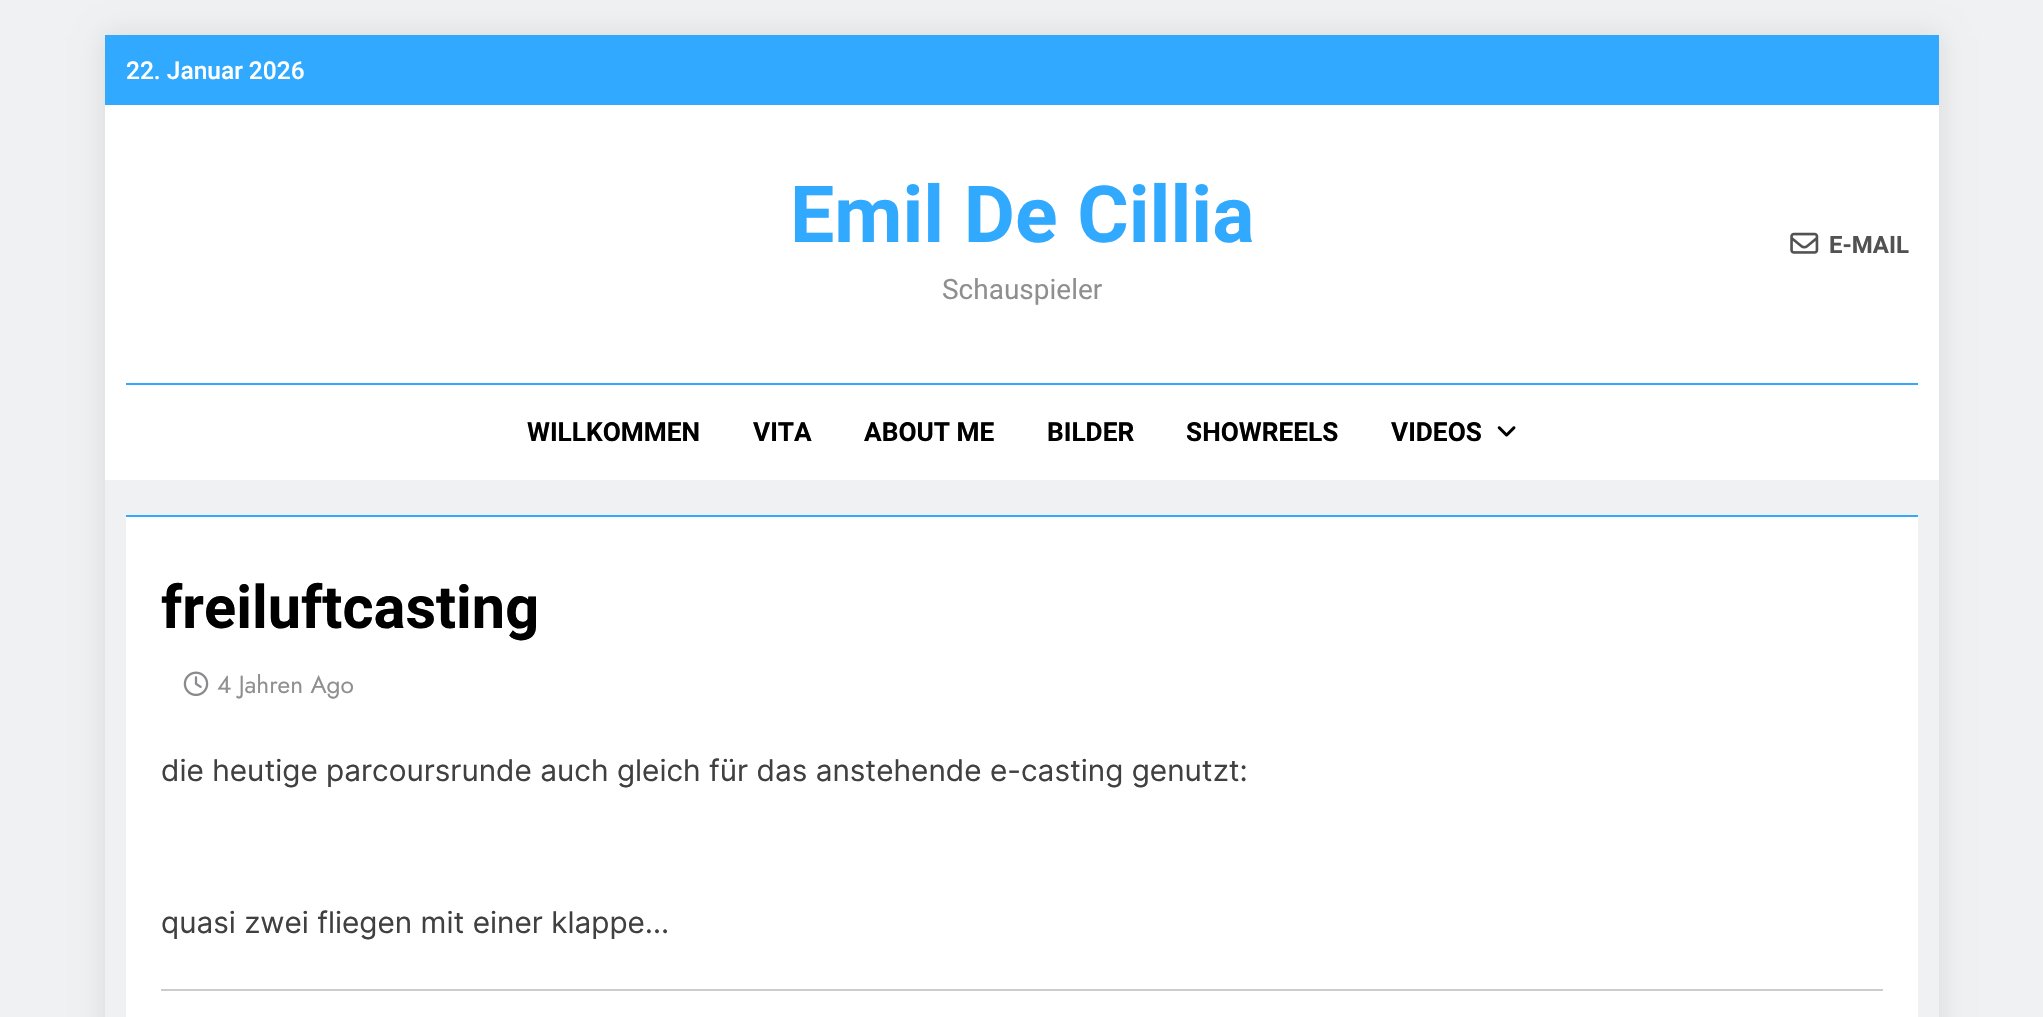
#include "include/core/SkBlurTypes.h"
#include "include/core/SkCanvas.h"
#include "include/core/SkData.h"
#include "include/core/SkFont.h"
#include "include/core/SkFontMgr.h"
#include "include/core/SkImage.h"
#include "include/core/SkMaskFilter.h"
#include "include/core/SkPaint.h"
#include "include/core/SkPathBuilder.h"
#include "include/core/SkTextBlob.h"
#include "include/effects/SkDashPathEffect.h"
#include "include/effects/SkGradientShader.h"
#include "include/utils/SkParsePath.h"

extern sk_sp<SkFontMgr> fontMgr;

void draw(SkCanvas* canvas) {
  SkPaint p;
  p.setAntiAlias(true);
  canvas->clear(SkColorSetRGB(240, 241, 242));
  canvas->save();
  canvas->clipPath(SkPathBuilder(SkPathFillType::kEvenOdd).moveTo(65, 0).lineTo(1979, 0).lineTo(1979, 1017).lineTo(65, 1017).close().moveTo(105, 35).lineTo(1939, 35).lineTo(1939, 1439).lineTo(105, 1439).close().detach(), true);
  p.setColor(SkColorSetARGB(26, 0, 0, 0));
  p.setMaskFilter(SkMaskFilter::MakeBlur(kNormal_SkBlurStyle, 13));
  canvas->drawRect(SkRect::MakeLTRB(105, 35, 1939, 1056), p);
  p.setMaskFilter(nullptr);
  canvas->restore();
  p.setColor(SkColorSetRGB(49, 169, 255));
  canvas->drawRect(SkRect::MakeLTRB(105, 35, 1939, 105), p);
  p.setColor(SK_ColorWHITE);
  canvas->drawRect(SkRect::MakeLTRB(105, 105, 1939, 480), p);
  canvas->drawImageRect(SkImages::DeferredFromEncodedData(SkData::MakeFromFileName("images/1.png")), SkRect::MakeLTRB(1790, 232, 1819, 254), SkSamplingOptions());
  p.setColor(SkColorSetRGB(49, 169, 255));
  canvas->drawRect(SkRect::MakeLTRB(126, 383, 1918, 385), p);
  canvas->drawImageRect(SkImages::DeferredFromEncodedData(SkData::MakeFromFileName("images/2.png")), SkRect::MakeLTRB(1497, 426, 1516, 437), SkSamplingOptions());
  p.setColor(SK_ColorWHITE);
  canvas->drawRect(SkRect::MakeLTRB(126, 517, 1918, 1017), p);
  p.setColor(SkColorSetRGB(49, 169, 255));
  canvas->drawRect(SkRect::MakeLTRB(126, 515, 1918, 517), p);
  canvas->drawImageRect(SkImages::DeferredFromEncodedData(SkData::MakeFromFileName("images/3.png")), SkRect::MakeLTRB(183, 671, 209, 696), SkSamplingOptions());
  p.setColor(SkColorSetRGB(204, 204, 204));
  canvas->drawRect(SkRect::MakeLTRB(161, 989, 1883, 991), p);
  SkFont font1(fontMgr->matchFamilyStyle("Roboto", SkFontStyle(500, SkFontStyle::kNormal_Width, SkFontStyle::kUpright_Slant)), 24.5f);
  font1.setSubpixel(true);
  p.setColor(SK_ColorWHITE);
  canvas->drawString("22. Januar 2026", 126, 79, font1, p);
  SkFont font2(fontMgr->matchFamilyStyle("Roboto", SkFontStyle::Bold()), 78.75f);
  font2.setSubpixel(true);
  p.setColor(SkColorSetRGB(49, 169, 255));
  canvas->drawString("Emil De Cillia", 790, 242, font2, p);
  SkFont font3(fontMgr->matchFamilyStyle("Roboto", SkFontStyle::Normal()), 28);
  font3.setSubpixel(true);
  p.setColor(SkColorSetRGB(143, 143, 143));
  canvas->drawString("Schauspieler", 942, 299, font3, p);
  SkFont font4(fontMgr->matchFamilyStyle("Roboto", SkFontStyle::Bold()), 24);
  font4.setSubpixel(true);
  p.setColor(SkColorSetRGB(82, 82, 82));
  canvas->drawString("E-MAIL", 1829, 253, font4, p);
  SkFont font5(fontMgr->matchFamilyStyle("Roboto", SkFontStyle::Bold()), 26.25f);
  font5.setSubpixel(true);
  p.setColor(SK_ColorBLACK);
  canvas->drawString("WILLKOMMEN", 527, 441, font5, p);
  canvas->drawString("VITA", 753, 441, font5, p);
  canvas->drawString("ABOUT ME", 864, 441, font5, p);
  canvas->drawString("BILDER", 1047, 441, font5, p);
  canvas->drawString("SHOWREELS", 1186, 441, font5, p);
  canvas->drawString("VIDEOS", 1391, 441, font5, p);
  SkFont font6(fontMgr->matchFamilyStyle("Roboto", SkFontStyle::Bold()), 59.5f);
  font6.setSubpixel(true);
  canvas->drawString("freiluftcasting", 161, 628, font6, p);
  SkFont font7(fontMgr->matchFamilyStyle("Jost", SkFontStyle::Normal()), 24.5f);
  font7.setSubpixel(true);
  p.setColor(SkColorSetRGB(143, 143, 143));
  canvas->drawString("4 Jahren Ago", 217, 693, font7, p);
  SkFont font8(fontMgr->matchFamilyStyle("Inter", SkFontStyle::Normal()), 29.75f);
  font8.setSubpixel(true);
  p.setColor(SkColorSetRGB(64, 64, 64));
  canvas->drawString("die heutige parcoursrunde auch gleich für das anstehende e-casting genutzt:", 161, 781, font8, p);
  canvas->drawString("quasi zwei fliegen mit einer klappe…", 161, 933, font8, p);
}
